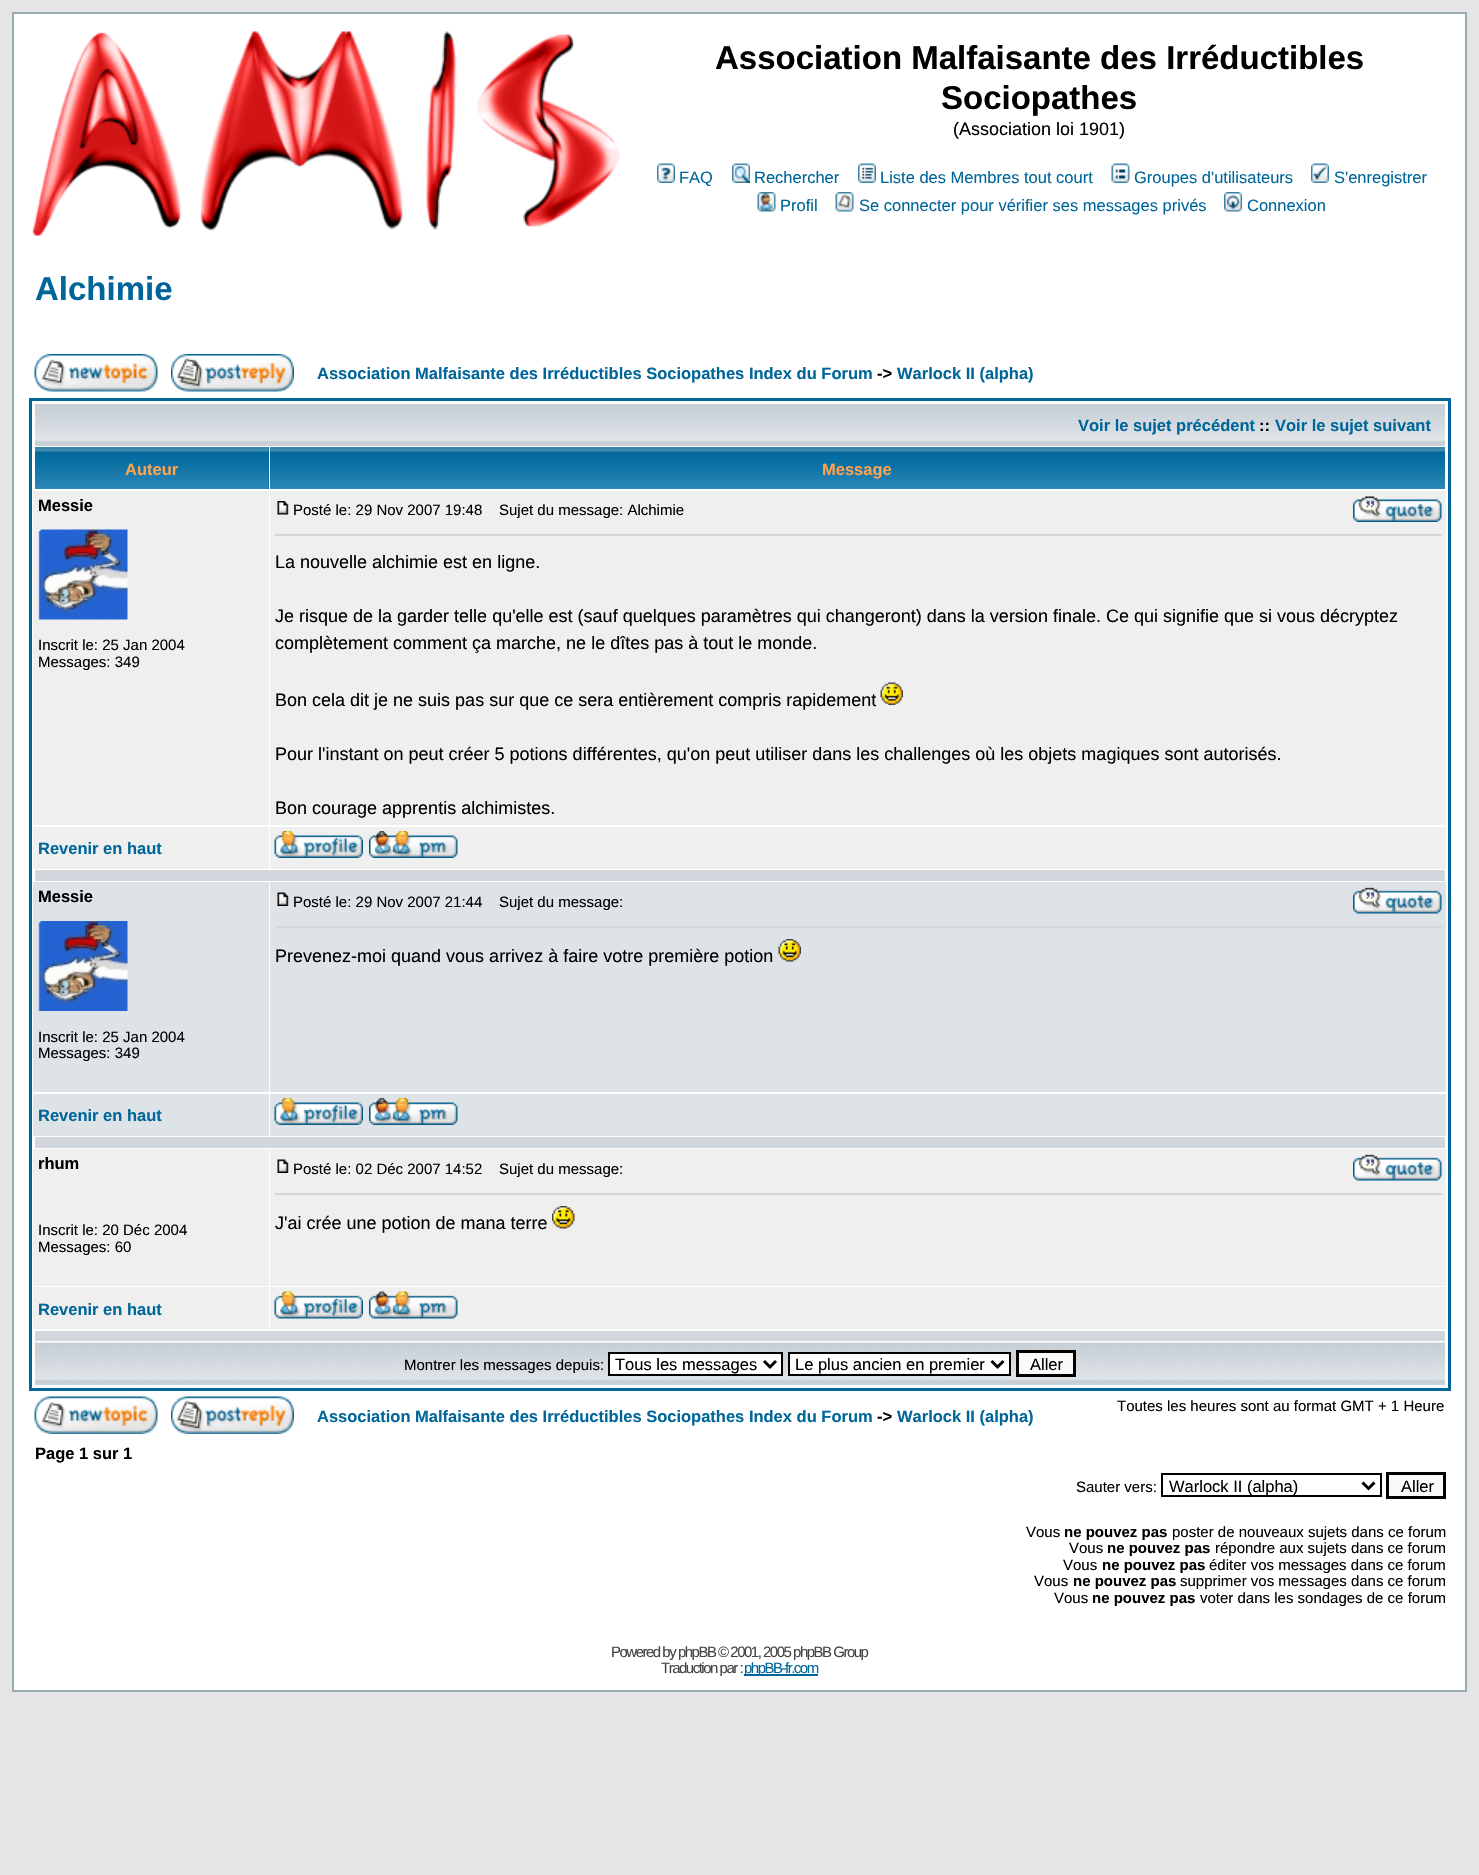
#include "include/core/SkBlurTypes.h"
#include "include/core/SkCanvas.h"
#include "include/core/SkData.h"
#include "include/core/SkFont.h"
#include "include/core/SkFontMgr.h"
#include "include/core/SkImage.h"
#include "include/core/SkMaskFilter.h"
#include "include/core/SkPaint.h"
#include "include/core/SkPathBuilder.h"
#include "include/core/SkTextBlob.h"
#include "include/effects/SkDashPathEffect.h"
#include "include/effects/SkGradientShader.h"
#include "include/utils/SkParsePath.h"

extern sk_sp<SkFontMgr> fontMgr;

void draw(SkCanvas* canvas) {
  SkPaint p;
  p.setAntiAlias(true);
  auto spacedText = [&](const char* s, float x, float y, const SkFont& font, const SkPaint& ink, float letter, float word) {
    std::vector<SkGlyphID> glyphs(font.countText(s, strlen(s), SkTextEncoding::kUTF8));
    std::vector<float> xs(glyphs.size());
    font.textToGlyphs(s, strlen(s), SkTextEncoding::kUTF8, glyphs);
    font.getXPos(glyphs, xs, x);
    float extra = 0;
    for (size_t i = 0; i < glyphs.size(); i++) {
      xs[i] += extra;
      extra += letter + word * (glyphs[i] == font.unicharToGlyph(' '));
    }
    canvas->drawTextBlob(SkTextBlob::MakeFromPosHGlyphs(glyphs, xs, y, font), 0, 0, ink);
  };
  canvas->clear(SkColorSetRGB(229, 229, 229));
  p.setColor(SK_ColorWHITE);
  canvas->drawRect(SkRect::MakeLTRB(13, 13, 1466, 1691), p);
  p.setStyle(SkPaint::kStroke_Style);
  p.setStrokeWidth(2);
  p.setColor(SkColorSetRGB(152, 170, 177));
  canvas->drawRect(SkRect::MakeLTRB(13, 13, 1466, 1691), p);
  canvas->drawImageRect(SkImages::DeferredFromEncodedData(SkData::MakeFromFileName("images/1.png")), SkRect::MakeLTRB(32, 30, 620, 236), SkSamplingOptions());
  canvas->drawImageRect(SkImages::DeferredFromEncodedData(SkData::MakeFromFileName("images/2.png")), SkRect::MakeLTRB(657, 163, 675, 183), SkSamplingOptions());
  canvas->drawImageRect(SkImages::DeferredFromEncodedData(SkData::MakeFromFileName("images/3.png")), SkRect::MakeLTRB(732, 163, 750, 183), SkSamplingOptions());
  canvas->drawImageRect(SkImages::DeferredFromEncodedData(SkData::MakeFromFileName("images/4.png")), SkRect::MakeLTRB(858, 163, 876, 183), SkSamplingOptions());
  canvas->drawImageRect(SkImages::DeferredFromEncodedData(SkData::MakeFromFileName("images/5.png")), SkRect::MakeLTRB(1111, 163, 1130, 183), SkSamplingOptions());
  canvas->drawImageRect(SkImages::DeferredFromEncodedData(SkData::MakeFromFileName("images/6.png")), SkRect::MakeLTRB(1311, 163, 1329, 183), SkSamplingOptions());
  canvas->drawImageRect(SkImages::DeferredFromEncodedData(SkData::MakeFromFileName("images/7.png")), SkRect::MakeLTRB(757, 192, 776, 212), SkSamplingOptions());
  canvas->drawImageRect(SkImages::DeferredFromEncodedData(SkData::MakeFromFileName("images/8.png")), SkRect::MakeLTRB(835, 192, 854, 212), SkSamplingOptions());
  canvas->drawImageRect(SkImages::DeferredFromEncodedData(SkData::MakeFromFileName("images/9.png")), SkRect::MakeLTRB(1224, 192, 1242, 212), SkSamplingOptions());
  canvas->drawImageRect(SkImages::DeferredFromEncodedData(SkData::MakeFromFileName("images/10.png")), SkRect::MakeLTRB(34, 354, 158, 392), SkSamplingOptions());
  canvas->drawImageRect(SkImages::DeferredFromEncodedData(SkData::MakeFromFileName("images/11.png")), SkRect::MakeLTRB(171, 354, 294, 392), SkSamplingOptions());
  p.setStrokeWidth(3);
  p.setColor(SkColorSetRGB(0, 102, 153));
  canvas->drawRect(SkRect::MakeLTRB(30.5f, 399.5f, 1449.5f, 1389.5f), p);
  p.setStyle(SkPaint::kFill_Style);
  p.setColor(SkColorSetRGB(209, 215, 220));
  canvas->drawRect(SkRect::MakeLTRB(35, 445, 1445, 446), p);
  canvas->drawImageRect(SkImages::DeferredFromEncodedData(SkData::MakeFromFileName("images/12.png")), SkRect::MakeLTRB(35, 404, 1445, 446), SkSamplingOptions());
  p.setColor(SkColorSetRGB(0, 102, 153));
  canvas->drawRect(SkRect::MakeLTRB(268, 447, 269, 489), p);
  canvas->drawImageRect(SkImages::DeferredFromEncodedData(SkData::MakeFromFileName("images/13.png")), SkRect::MakeLTRB(35, 447, 269, 489), SkSamplingOptions());
  canvas->drawImageRect(SkImages::DeferredFromEncodedData(SkData::MakeFromFileName("images/14.png")), SkRect::MakeLTRB(270, 447, 1445, 489), SkSamplingOptions());
  p.setColor(SkColorSetRGB(239, 239, 239));
  canvas->drawRect(SkRect::MakeLTRB(33, 491, 269, 825), p);
  canvas->drawImageRect(SkImages::DeferredFromEncodedData(SkData::MakeFromFileName("images/15.png")), SkRect::MakeLTRB(38, 529, 128, 620), SkSamplingOptions());
  canvas->drawRect(SkRect::MakeLTRB(270, 491, 1446, 825), p);
  canvas->drawImageRect(SkImages::DeferredFromEncodedData(SkData::MakeFromFileName("images/16.png")), SkRect::MakeLTRB(277, 501, 289, 515), SkSamplingOptions());
  canvas->drawImageRect(SkImages::DeferredFromEncodedData(SkData::MakeFromFileName("images/17.png")), SkRect::MakeLTRB(1353, 496, 1442, 522), SkSamplingOptions());
  p.setColor(SkColorSetRGB(209, 215, 220));
  canvas->drawRect(SkRect::MakeLTRB(275, 534, 1442, 536), p);
  canvas->drawImageRect(SkImages::DeferredFromEncodedData(SkData::MakeFromFileName("images/18.png")), SkRect::MakeLTRB(880, 682, 903, 705), SkSamplingOptions());
  p.setColor(SkColorSetRGB(239, 239, 239));
  canvas->drawRect(SkRect::MakeLTRB(33, 827, 269, 869), p);
  canvas->drawRect(SkRect::MakeLTRB(270, 827, 1446, 869), p);
  canvas->drawImageRect(SkImages::DeferredFromEncodedData(SkData::MakeFromFileName("images/19.png")), SkRect::MakeLTRB(274, 831, 363, 858), SkSamplingOptions());
  canvas->drawImageRect(SkImages::DeferredFromEncodedData(SkData::MakeFromFileName("images/20.png")), SkRect::MakeLTRB(369, 831, 458, 858), SkSamplingOptions());
  p.setColor(SkColorSetRGB(209, 215, 220));
  canvas->drawRect(SkRect::MakeLTRB(35, 870, 1445, 881), p);
  p.setColor(SkColorSetRGB(222, 227, 231));
  canvas->drawRect(SkRect::MakeLTRB(33, 882, 269, 1092), p);
  canvas->drawImageRect(SkImages::DeferredFromEncodedData(SkData::MakeFromFileName("images/21.png")), SkRect::MakeLTRB(38, 921, 128, 1011), SkSamplingOptions());
  canvas->drawRect(SkRect::MakeLTRB(270, 882, 1446, 1092), p);
  canvas->drawImageRect(SkImages::DeferredFromEncodedData(SkData::MakeFromFileName("images/22.png")), SkRect::MakeLTRB(277, 892, 289, 906), SkSamplingOptions());
  canvas->drawImageRect(SkImages::DeferredFromEncodedData(SkData::MakeFromFileName("images/23.png")), SkRect::MakeLTRB(1353, 887, 1442, 914), SkSamplingOptions());
  p.setColor(SkColorSetRGB(209, 215, 220));
  canvas->drawRect(SkRect::MakeLTRB(275, 926, 1442, 928), p);
  canvas->drawImageRect(SkImages::DeferredFromEncodedData(SkData::MakeFromFileName("images/24.png")), SkRect::MakeLTRB(778, 939, 801, 962), SkSamplingOptions());
  p.setColor(SkColorSetRGB(222, 227, 231));
  canvas->drawRect(SkRect::MakeLTRB(33, 1094, 269, 1136), p);
  canvas->drawRect(SkRect::MakeLTRB(270, 1094, 1446, 1136), p);
  canvas->drawImageRect(SkImages::DeferredFromEncodedData(SkData::MakeFromFileName("images/25.png")), SkRect::MakeLTRB(274, 1098, 363, 1125), SkSamplingOptions());
  canvas->drawImageRect(SkImages::DeferredFromEncodedData(SkData::MakeFromFileName("images/26.png")), SkRect::MakeLTRB(369, 1098, 458, 1125), SkSamplingOptions());
  p.setColor(SkColorSetRGB(209, 215, 220));
  canvas->drawRect(SkRect::MakeLTRB(35, 1137, 1445, 1148), p);
  p.setColor(SkColorSetRGB(239, 239, 239));
  canvas->drawRect(SkRect::MakeLTRB(33, 1149, 269, 1286), p);
  canvas->drawRect(SkRect::MakeLTRB(270, 1149, 1446, 1286), p);
  canvas->drawImageRect(SkImages::DeferredFromEncodedData(SkData::MakeFromFileName("images/27.png")), SkRect::MakeLTRB(277, 1159, 289, 1173), SkSamplingOptions());
  canvas->drawImageRect(SkImages::DeferredFromEncodedData(SkData::MakeFromFileName("images/28.png")), SkRect::MakeLTRB(1353, 1154, 1442, 1181), SkSamplingOptions());
  p.setColor(SkColorSetRGB(209, 215, 220));
  canvas->drawRect(SkRect::MakeLTRB(275, 1193, 1442, 1195), p);
  canvas->drawImageRect(SkImages::DeferredFromEncodedData(SkData::MakeFromFileName("images/29.png")), SkRect::MakeLTRB(552, 1206, 575, 1229), SkSamplingOptions());
  p.setColor(SkColorSetRGB(239, 239, 239));
  canvas->drawRect(SkRect::MakeLTRB(33, 1287, 269, 1329), p);
  canvas->drawRect(SkRect::MakeLTRB(270, 1287, 1446, 1329), p);
  canvas->drawImageRect(SkImages::DeferredFromEncodedData(SkData::MakeFromFileName("images/30.png")), SkRect::MakeLTRB(274, 1291, 363, 1319), SkSamplingOptions());
  canvas->drawImageRect(SkImages::DeferredFromEncodedData(SkData::MakeFromFileName("images/31.png")), SkRect::MakeLTRB(369, 1291, 458, 1319), SkSamplingOptions());
  p.setColor(SkColorSetRGB(209, 215, 220));
  canvas->drawRect(SkRect::MakeLTRB(35, 1331, 1445, 1341), p);
  canvas->drawImageRect(SkImages::DeferredFromEncodedData(SkData::MakeFromFileName("images/32.png")), SkRect::MakeLTRB(33, 1342, 1446, 1385), SkSamplingOptions());
  p.setColor(SK_ColorWHITE);
  canvas->drawRect(SkRect::MakeLTRB(1445, 1343, 1446, 1386), p);
  canvas->drawRect(SkRect::MakeLTRB(33, 1343, 35, 1386), p);
  canvas->drawRect(SkRect::MakeLTRB(609, 1353, 782, 1375), p);
  p.setStyle(SkPaint::kStroke_Style);
  p.setStrokeWidth(2);
  p.setColor(SK_ColorBLACK);
  canvas->drawRect(SkRect::MakeLTRB(609, 1353, 782, 1375), p);
  p.setStrokeWidth(3);
  canvas->drawPath(SkPathBuilder().moveTo(764, 1361).lineTo(770, 1367).lineTo(776, 1361).detach(), p);
  p.setStyle(SkPaint::kFill_Style);
  p.setColor(SK_ColorWHITE);
  canvas->drawRect(SkRect::MakeLTRB(789, 1353, 1010, 1375), p);
  p.setStyle(SkPaint::kStroke_Style);
  p.setStrokeWidth(2);
  p.setColor(SK_ColorBLACK);
  canvas->drawRect(SkRect::MakeLTRB(789, 1353, 1010, 1375), p);
  p.setStrokeWidth(3);
  canvas->drawPath(SkPathBuilder().moveTo(991.5f, 1361).lineTo(997.5f, 1367).lineTo(1003.5f, 1361).detach(), p);
  p.setStyle(SkPaint::kFill_Style);
  p.setColor(SkColorSetRGB(250, 250, 250));
  canvas->drawRect(SkRect::MakeLTRB(1017.5f, 1351.5f, 1074.5f, 1375.5f), p);
  p.setStyle(SkPaint::kStroke_Style);
  p.setColor(SK_ColorBLACK);
  canvas->drawRect(SkRect::MakeLTRB(1017.5f, 1351.5f, 1074.5f, 1375.5f), p);
  canvas->drawImageRect(SkImages::DeferredFromEncodedData(SkData::MakeFromFileName("images/33.png")), SkRect::MakeLTRB(34, 1396, 158, 1434), SkSamplingOptions());
  canvas->drawImageRect(SkImages::DeferredFromEncodedData(SkData::MakeFromFileName("images/34.png")), SkRect::MakeLTRB(171, 1396, 294, 1434), SkSamplingOptions());
  p.setStrokeWidth(2);
  canvas->drawRect(SkRect::MakeLTRB(1162, 1474, 1381, 1496), p);
  p.setStrokeWidth(3);
  canvas->drawPath(SkPathBuilder().moveTo(1362.5f, 1482.5f).lineTo(1368.5f, 1488.5f).lineTo(1374.5f, 1482.5f).detach(), p);
  p.setStyle(SkPaint::kFill_Style);
  p.setColor(SkColorSetRGB(250, 250, 250));
  canvas->drawRect(SkRect::MakeLTRB(1387.5f, 1473.5f, 1444.5f, 1497.5f), p);
  p.setStyle(SkPaint::kStroke_Style);
  p.setColor(SK_ColorBLACK);
  canvas->drawRect(SkRect::MakeLTRB(1387.5f, 1473.5f, 1444.5f, 1497.5f), p);
  p.setStyle(SkPaint::kFill_Style);
  p.setColor(SkColorSetRGB(0, 102, 153));
  canvas->drawRect(SkRect::MakeLTRB(744, 1674, 818, 1676), p);
  SkFont font1(fontMgr->matchFamilyStyle("Liberation Sans", SkFontStyle::Bold()), 33);
  font1.setSubpixel(true);
  p.setColor(SK_ColorBLACK);
  canvas->drawString("Association Malfaisante des Irréductibles", 715, 69, font1, p);
  canvas->drawString("Sociopathes", 941, 109, font1, p);
  SkFont font2(fontMgr->matchFamilyStyle("Liberation Sans", SkFontStyle::Normal()), 18);
  font2.setSubpixel(true);
  canvas->drawString("(Association loi 1901)", 953, 135, font2, p);
  SkFont font3(fontMgr->matchFamilyStyle("Liberation Sans", SkFontStyle::Normal()), 16.5f);
  font3.setSubpixel(true);
  p.setColor(SkColorSetRGB(0, 102, 153));
  canvas->drawString("FAQ", 679, 183, font3, p);
  canvas->drawString("Rechercher", 754, 183, font3, p);
  canvas->drawString("Liste des Membres tout court", 880, 183, font3, p);
  canvas->drawString("Groupes d'utilisateurs", 1134, 183, font3, p);
  canvas->drawString("S'enregistrer", 1334, 183, font3, p);
  canvas->drawString("Profil", 780, 211, font3, p);
  canvas->drawString("Se connecter pour vérifier ses messages privés", 859, 211, font3, p);
  canvas->drawString("Connexion", 1247, 211, font3, p);
  canvas->drawString("Alchimie", 35, 300, font1, p);
  SkFont font4(fontMgr->matchFamilyStyle("Liberation Sans", SkFontStyle::Bold()), 16.5f);
  font4.setSubpixel(true);
  canvas->drawString("Association Malfaisante des Irréductibles Sociopathes Index du Forum", 317, 379, font4, p);
  p.setColor(SK_ColorBLACK);
  canvas->drawString("->", 877, 379, font4, p);
  p.setColor(SkColorSetRGB(0, 102, 153));
  canvas->drawString("Warlock II (alpha)", 897, 379, font4, p);
  canvas->drawString("Voir le sujet précédent", 1078, 431, font4, p);
  p.setColor(SK_ColorBLACK);
  canvas->drawString("::", 1259, 431, font4, p);
  p.setColor(SkColorSetRGB(0, 102, 153));
  canvas->drawString("Voir le sujet suivant", 1275, 431, font4, p);
  p.setColor(SkColorSetRGB(255, 163, 79));
  canvas->drawString("Auteur", 125, 475, font4, p);
  canvas->drawString("Message", 822, 475, font4, p);
  p.setColor(SK_ColorBLACK);
  canvas->drawString("Messie", 38, 511, font4, p);
  SkFont font5(fontMgr->matchFamilyStyle("Liberation Sans", SkFontStyle::Normal()), 15);
  font5.setSubpixel(true);
  canvas->drawString("Inscrit le: 25 Jan 2004", 38, 650, font5, p);
  canvas->drawString("Messages: 349", 38, 667, font5, p);
  canvas->drawString("Posté le: 29 Nov 2007 19:48", 293, 515, font5, p);
  canvas->drawString("Sujet du message: Alchimie", 499, 515, font5, p);
  canvas->drawString("La nouvelle alchimie est en ligne.", 275, 568, font2, p);
  canvas->drawString("Je risque de la garder telle qu'elle est (sauf quelques paramètres qui changeront) dans la version finale. Ce qui signifie que si vous décryptez", 275, 622, font2, p);
  canvas->drawString("complètement comment ça marche, ne le dîtes pas à tout le monde.", 275, 649, font2, p);
  canvas->drawString("Bon cela dit je ne suis pas sur que ce sera entièrement compris rapidement", 275, 706, font2, p);
  canvas->drawString("Pour l'instant on peut créer 5 potions différentes, qu'on peut utiliser dans les challenges où les objets magiques sont autorisés.", 275, 760, font2, p);
  canvas->drawString("Bon courage apprentis alchimistes.", 275, 814, font2, p);
  p.setColor(SkColorSetRGB(0, 102, 153));
  canvas->drawString("Revenir en haut", 38, 854, font4, p);
  p.setColor(SK_ColorBLACK);
  canvas->drawString("Messie", 38, 902, font4, p);
  canvas->drawString("Inscrit le: 25 Jan 2004", 38, 1042, font5, p);
  canvas->drawString("Messages: 349", 38, 1058, font5, p);
  canvas->drawString("Posté le: 29 Nov 2007 21:44", 293, 907, font5, p);
  canvas->drawString("Sujet du message:", 499, 907, font5, p);
  canvas->drawString("Prevenez-moi quand vous arrivez à faire votre première potion", 275, 962, font2, p);
  p.setColor(SkColorSetRGB(0, 102, 153));
  canvas->drawString("Revenir en haut", 38, 1121, font4, p);
  p.setColor(SK_ColorBLACK);
  canvas->drawString("rhum", 38, 1169, font4, p);
  canvas->drawString("Inscrit le: 20 Déc 2004", 38, 1235, font5, p);
  canvas->drawString("Messages: 60", 38, 1252, font5, p);
  canvas->drawString("Posté le: 02 Déc 2007 14:52", 293, 1174, font5, p);
  canvas->drawString("Sujet du message:", 499, 1174, font5, p);
  canvas->drawString("J'ai crée une potion de mana terre", 275, 1229, font2, p);
  p.setColor(SkColorSetRGB(0, 102, 153));
  canvas->drawString("Revenir en haut", 38, 1315, font4, p);
  p.setColor(SK_ColorBLACK);
  canvas->drawString("Montrer les messages depuis:", 404, 1370, font5, p);
  canvas->drawString("Tous les messages", 615, 1370, font3, p);
  canvas->drawString("Le plus ancien en premier", 795, 1370, font3, p);
  canvas->drawString("Aller", 1030, 1370, font3, p);
  canvas->drawString("Toutes les heures sont au format GMT + 1 Heure", 1117, 1411, font5, p);
  p.setColor(SkColorSetRGB(0, 102, 153));
  canvas->drawString("Association Malfaisante des Irréductibles Sociopathes Index du Forum", 317, 1422, font4, p);
  p.setColor(SK_ColorBLACK);
  canvas->drawString("->", 877, 1422, font4, p);
  p.setColor(SkColorSetRGB(0, 102, 153));
  canvas->drawString("Warlock II (alpha)", 897, 1422, font4, p);
  p.setColor(SK_ColorBLACK);
  canvas->drawString("Page 1 sur 1", 35, 1459, font4, p);
  canvas->drawString("Sauter vers:", 1076, 1492, font5, p);
  canvas->drawString("Warlock II (alpha)", 1169, 1492, font3, p);
  canvas->drawString("Aller", 1401, 1492, font3, p);
  canvas->drawString("Vous", 1026, 1537, font5, p);
  SkFont font6(fontMgr->matchFamilyStyle("Liberation Sans", SkFontStyle::Bold()), 15);
  font6.setSubpixel(true);
  canvas->drawString("ne pouvez pas", 1064, 1537, font6, p);
  canvas->drawString("poster de nouveaux sujets dans ce forum", 1172, 1537, font5, p);
  canvas->drawString("Vous", 1069, 1553, font5, p);
  canvas->drawString("ne pouvez pas", 1107, 1553, font6, p);
  canvas->drawString("répondre aux sujets dans ce forum", 1215, 1553, font5, p);
  canvas->drawString("Vous", 1063, 1570, font5, p);
  canvas->drawString("ne pouvez pas", 1102, 1570, font6, p);
  canvas->drawString("éditer vos messages dans ce forum", 1209, 1570, font5, p);
  canvas->drawString("Vous", 1034, 1586, font5, p);
  canvas->drawString("ne pouvez pas", 1073, 1586, font6, p);
  canvas->drawString("supprimer vos messages dans ce forum", 1180, 1586, font5, p);
  canvas->drawString("Vous", 1054, 1603, font5, p);
  canvas->drawString("ne pouvez pas", 1092, 1603, font6, p);
  canvas->drawString("voter dans les sondages de ce forum", 1200, 1603, font5, p);
  p.setColor(SkColorSetRGB(68, 68, 68));
  spacedText("Powered by phpBB © 2001, 2005 phpBB Group", 611, 1657, font5, p, -1.5f, 0);
  spacedText("Traduction par :", 661, 1673, font5, p, -1.5f, 0);
  p.setColor(SkColorSetRGB(0, 102, 153));
  spacedText("phpBB-fr.com", 744, 1673, font5, p, -1.5f, 0);
}
